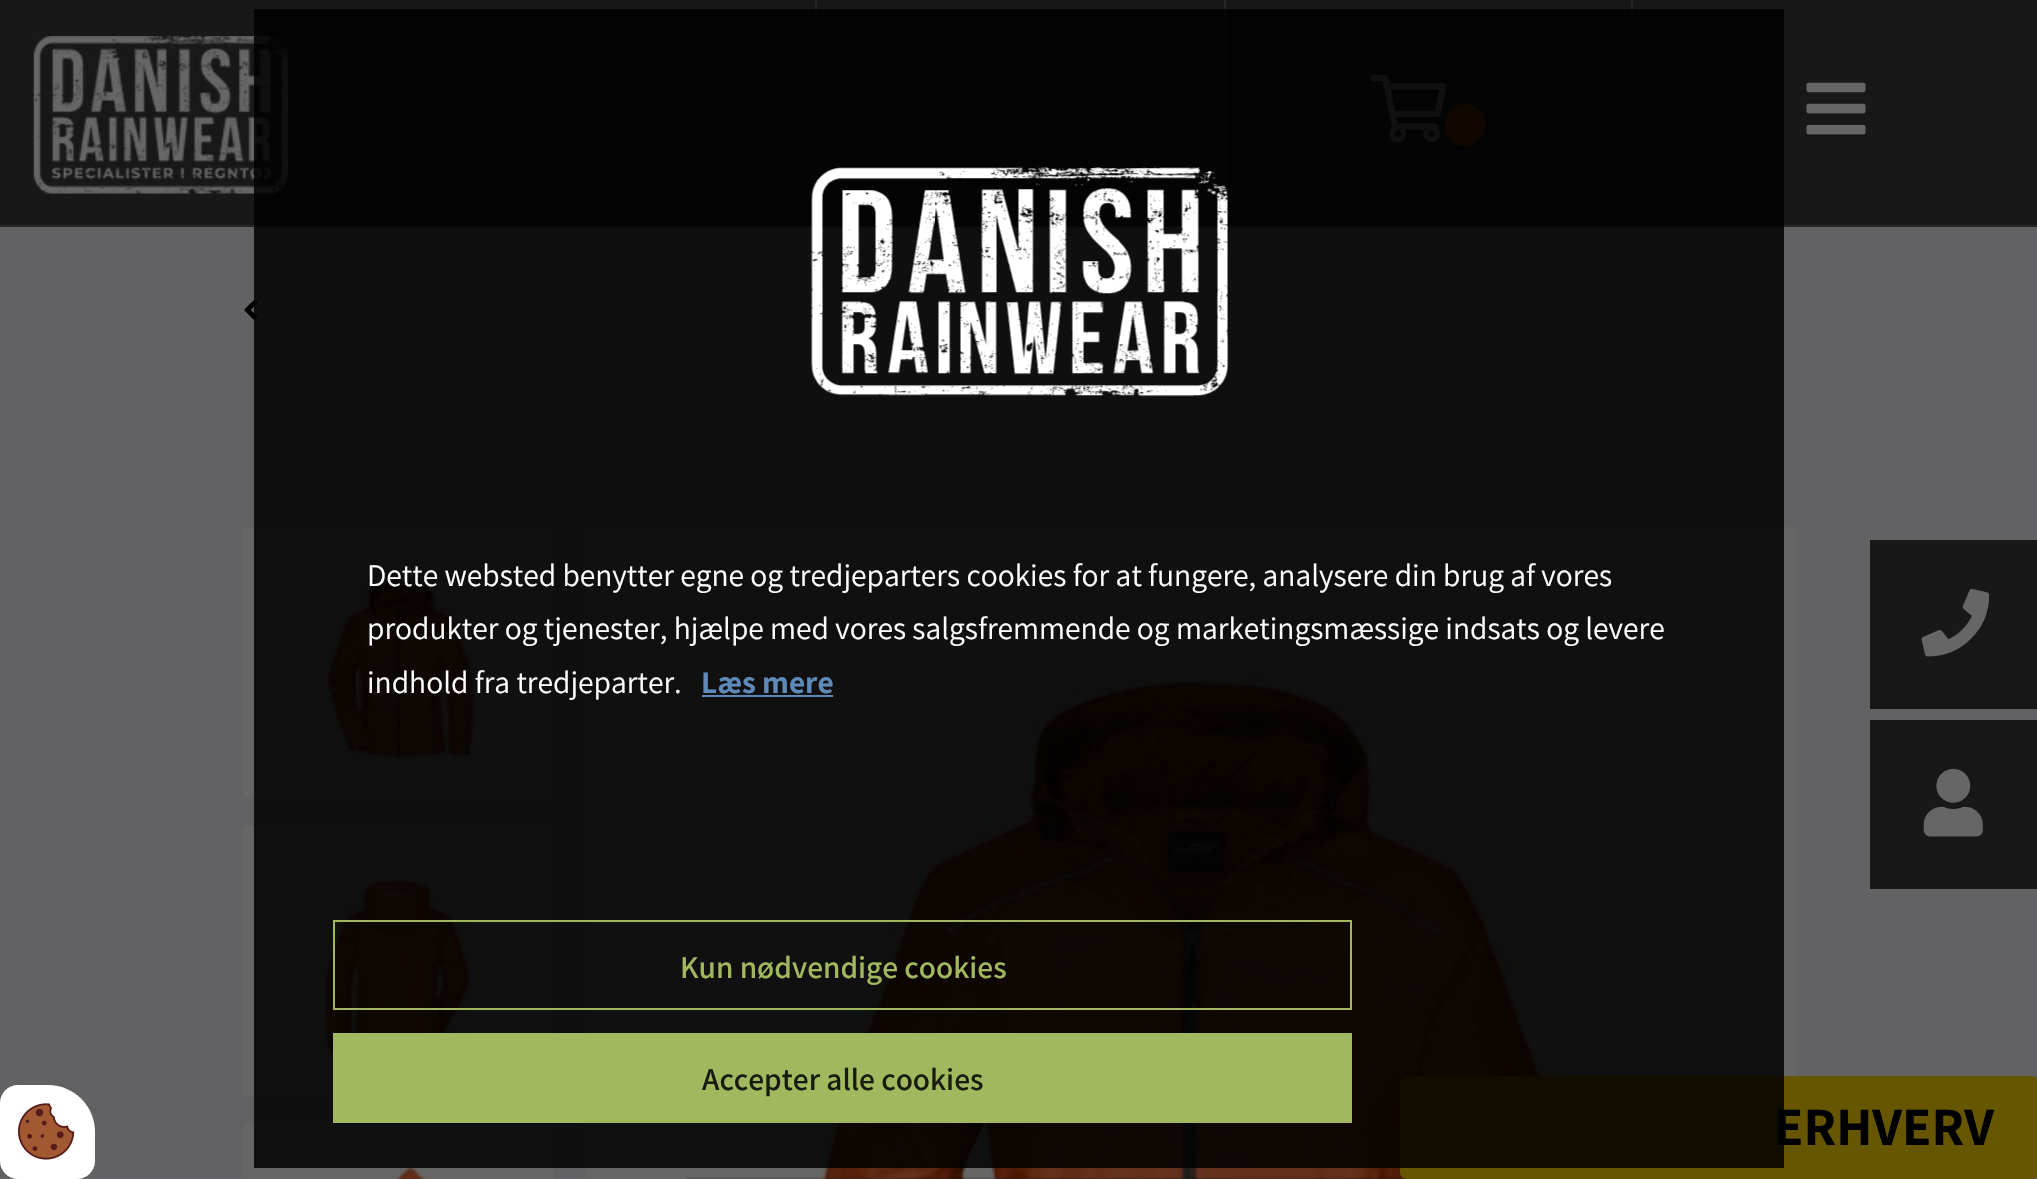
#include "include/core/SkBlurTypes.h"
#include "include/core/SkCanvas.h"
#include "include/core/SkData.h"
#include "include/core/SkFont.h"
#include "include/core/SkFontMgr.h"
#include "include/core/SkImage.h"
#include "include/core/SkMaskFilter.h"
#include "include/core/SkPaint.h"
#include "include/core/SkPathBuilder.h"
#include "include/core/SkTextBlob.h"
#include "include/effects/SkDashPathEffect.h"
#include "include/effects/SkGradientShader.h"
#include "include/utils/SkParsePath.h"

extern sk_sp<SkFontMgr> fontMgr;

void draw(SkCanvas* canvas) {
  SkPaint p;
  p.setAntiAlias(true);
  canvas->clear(SkColorSetRGB(98, 98, 100));
  canvas->drawImageRect(SkImages::DeferredFromEncodedData(SkData::MakeFromFileName("images/1.png")), SkRect::MakeLTRB(244, 300, 258, 320), SkSamplingOptions());
  p.setColor(SkColorSetRGB(102, 102, 102));
  canvas->drawRect(SkRect::MakeLTRB(243, 527, 554, 797), p);
  canvas->drawImageRect(SkImages::DeferredFromEncodedData(SkData::MakeFromFileName("images/2.png")), SkRect::MakeLTRB(324, 570, 475, 768), SkSamplingOptions());
  canvas->drawRect(SkRect::MakeLTRB(243, 826, 554, 1096), p);
  canvas->drawImageRect(SkImages::DeferredFromEncodedData(SkData::MakeFromFileName("images/3.png")), SkRect::MakeLTRB(324, 868, 471, 1068), SkSamplingOptions());
  canvas->drawRect(SkRect::MakeLTRB(243, 1125, 554, 1179), p);
  canvas->drawImageRect(SkImages::DeferredFromEncodedData(SkData::MakeFromFileName("images/4.png")), SkRect::MakeLTRB(393, 1165, 429, 1179), SkSamplingOptions());
  canvas->drawRect(SkRect::MakeLTRB(587, 527, 1796, 1179), p);
  canvas->drawImageRect(SkImages::DeferredFromEncodedData(SkData::MakeFromFileName("images/5.png")), SkRect::MakeLTRB(819, 668, 1574, 1179), SkSamplingOptions());
  p.setColor(SkColorSetRGB(24, 24, 24));
  canvas->drawRect(SkRect::MakeLTRB(1870, 540, 2037, 709), p);
  canvas->drawImageRect(SkImages::DeferredFromEncodedData(SkData::MakeFromFileName("images/6.png")), SkRect::MakeLTRB(1921, 588, 1990, 657), SkSamplingOptions());
  canvas->drawRect(SkRect::MakeLTRB(1870, 720, 2037, 889), p);
  canvas->drawImageRect(SkImages::DeferredFromEncodedData(SkData::MakeFromFileName("images/7.png")), SkRect::MakeLTRB(1923, 768, 1983, 837), SkSamplingOptions());
  p.setColor(SK_ColorWHITE);
  canvas->drawPath(SkPathBuilder().moveTo(18, 1085).lineTo(48, 1085).cubicTo(74, 1085, 95, 1106, 95, 1132).lineTo(95, 1161).cubicTo(95, 1171, 87, 1179, 77, 1179).lineTo(18, 1179).cubicTo(8, 1179, 0, 1171, 0, 1161).lineTo(0, 1103).cubicTo(0, 1093, 8, 1085, 18, 1085).close().detach(), p);
  canvas->drawImageRect(SkImages::DeferredFromEncodedData(SkData::MakeFromFileName("images/9.png")), SkRect::MakeLTRB(18, 1103, 75, 1160), SkSamplingOptions());
  p.setColor(SkColorSetRGB(24, 24, 24));
  canvas->drawRect(SkRect::MakeLTRB(0, 0, 2037, 225), p);
  p.setColor(SkColorSetRGB(38, 38, 38));
  canvas->drawRect(SkRect::MakeLTRB(815, 0, 817, 187), p);
  canvas->drawRect(SkRect::MakeLTRB(0, 225, 2037, 227), p);
  canvas->drawRect(SkRect::MakeLTRB(1224, 0, 1226, 227), p);
  canvas->drawImageRect(SkImages::DeferredFromEncodedData(SkData::MakeFromFileName("images/10.png")), SkRect::MakeLTRB(1370, 74, 1447, 143), SkSamplingOptions());
  p.setColor(SkColorSetRGB(102, 50, 0));
  canvas->drawRoundRect(SkRect::MakeLTRB(1445, 104, 1485, 146), 20, 20, p);
  p.setColor(SkColorSetRGB(38, 38, 38));
  canvas->drawRect(SkRect::MakeLTRB(1631, 0, 1633, 227), p);
  canvas->drawImageRect(SkImages::DeferredFromEncodedData(SkData::MakeFromFileName("images/11.png")), SkRect::MakeLTRB(1806, 82, 1866, 135), SkSamplingOptions());
  canvas->drawImageRect(SkImages::DeferredFromEncodedData(SkData::MakeFromFileName("images/12.png")), SkRect::MakeLTRB(33, 36, 288, 194), SkSamplingOptions());
  p.setStyle(SkPaint::kStroke_Style);
  p.setStrokeWidth(2);
  p.setColor(SkColorSetARGB(26, 0, 0, 0));
  canvas->drawRect(SkRect::MakeLTRB(687, 1178, 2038, 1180), p);
  p.setStyle(SkPaint::kFill_Style);
  p.setColor(SkColorSetRGB(102, 86, 0));
  canvas->drawRoundRect(SkRect::MakeLTRB(1400, 1076, 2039, 1179), 7, 7, p);
  SkFont font1(fontMgr->matchFamilyStyle("Assistant", SkFontStyle(200, SkFontStyle::kNormal_Width, SkFontStyle::kUpright_Slant)), 54);
  font1.setSubpixel(true);
  p.setColor(SK_ColorBLACK);
  canvas->drawString("ERHVERV", 1774, 1145, font1, p);
  p.setColor(SkColorSetARGB(217, 0, 0, 0));
  canvas->drawRect(SkRect::MakeLTRB(254, 9, 1784, 1168), p);
  SkFont font2(fontMgr->matchFamilyStyle("Assistant", SkFontStyle(200, SkFontStyle::kNormal_Width, SkFontStyle::kUpright_Slant)), 31.5f);
  font2.setSubpixel(true);
  p.setColor(SkColorSetRGB(95, 137, 184));
  canvas->drawString("Læs mere", 701, 693, font2, p);
  canvas->drawRect(SkRect::MakeLTRB(702, 695, 833, 697), p);
  SkFont font3(fontMgr->matchFamilyStyle("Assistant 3", SkFontStyle(200, SkFontStyle::kNormal_Width, SkFontStyle::kUpright_Slant)), 31.5f);
  font3.setSubpixel(true);
  p.setColor(SK_ColorWHITE);
  canvas->drawString("indhold fra tredjeparter.", 367, 693, font3, p);
  canvas->drawString("produkter og tjenester, hjælpe med vores salgsfremmende og marketingsmæssige indsats og levere", 367, 639, font3, p);
  canvas->drawString("Dette websted benytter egne og tredjeparters cookies for at fungere, analysere din brug af vores", 367, 586, font3, p);
  canvas->drawImageRect(SkImages::DeferredFromEncodedData(SkData::MakeFromFileName("images/8.png")), SkRect::MakeLTRB(811, 167, 1229, 397), SkSamplingOptions());
  p.setColor(SkColorSetRGB(162, 184, 95));
  canvas->drawRect(SkRect::MakeLTRB(333, 1033, 1352, 1123), p);
  SkFont font4(fontMgr->matchFamilyStyle("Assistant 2", SkFontStyle(200, SkFontStyle::kNormal_Width, SkFontStyle::kUpright_Slant)), 31.5f);
  font4.setSubpixel(true);
  p.setColor(SkColorSetRGB(24, 28, 14));
  canvas->drawString("Accepter alle cookies", 702, 1090, font4, p);
  p.setStyle(SkPaint::kStroke_Style);
  p.setColor(SkColorSetRGB(162, 184, 95));
  canvas->drawRect(SkRect::MakeLTRB(334, 921, 1351, 1009), p);
  p.setStyle(SkPaint::kFill_Style);
  canvas->drawString("Kun nødvendige cookies", 680, 978, font4, p);
}
